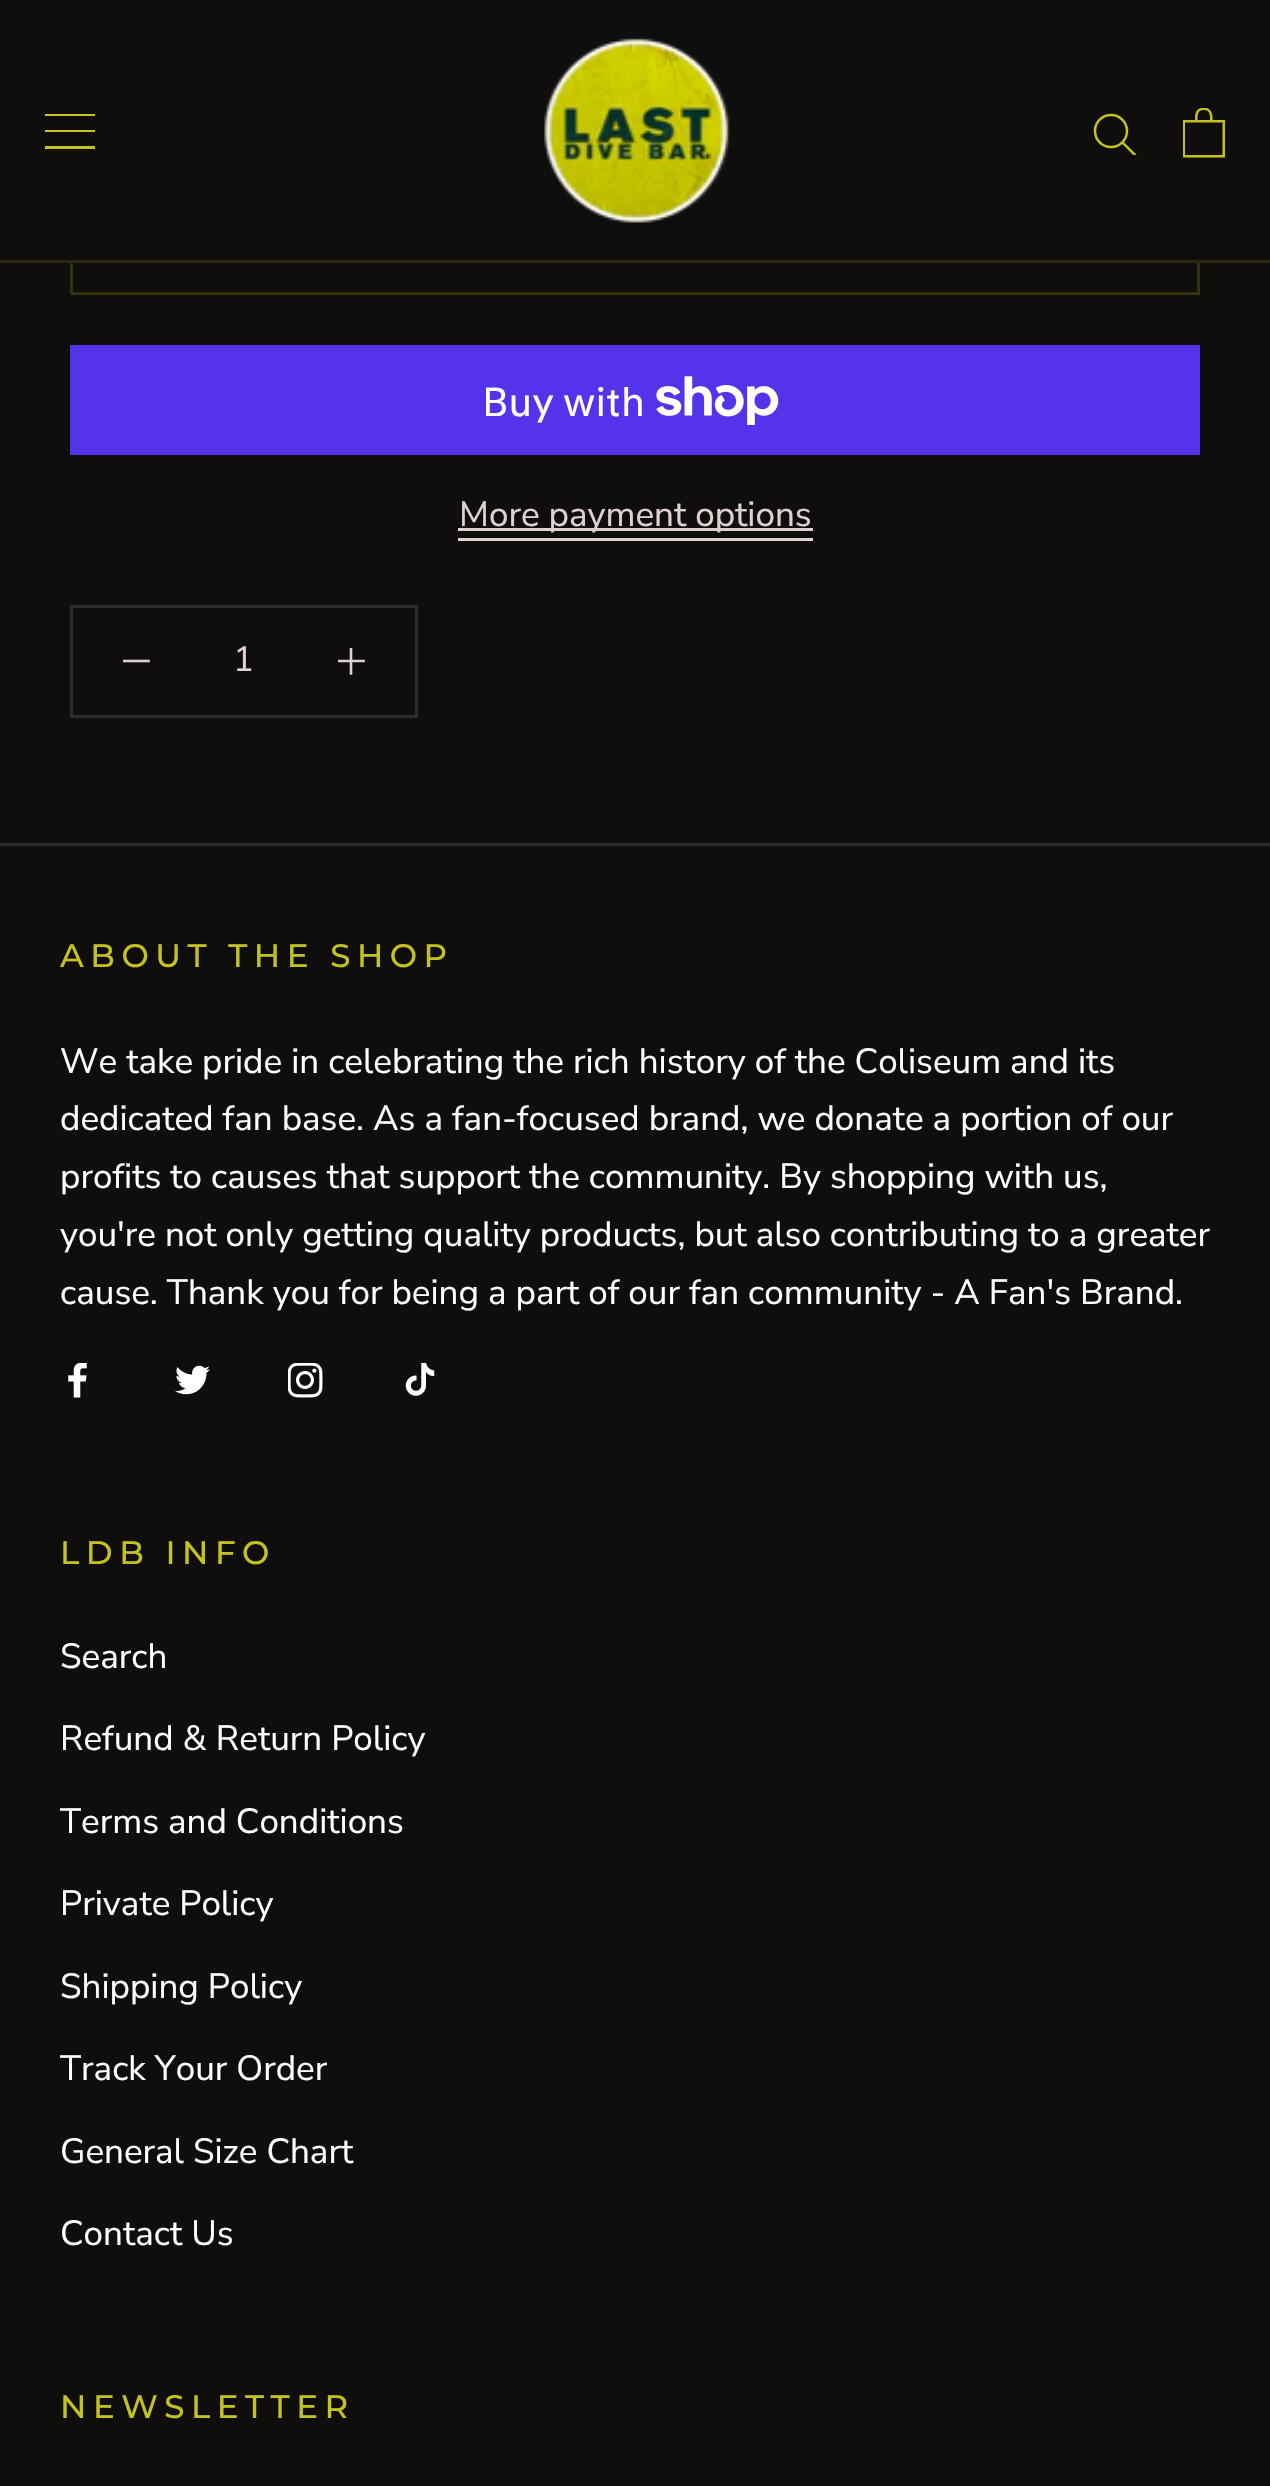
#include "include/core/SkBlurTypes.h"
#include "include/core/SkCanvas.h"
#include "include/core/SkData.h"
#include "include/core/SkFont.h"
#include "include/core/SkFontMgr.h"
#include "include/core/SkImage.h"
#include "include/core/SkMaskFilter.h"
#include "include/core/SkPaint.h"
#include "include/core/SkPathBuilder.h"
#include "include/core/SkTextBlob.h"
#include "include/effects/SkDashPathEffect.h"
#include "include/effects/SkGradientShader.h"
#include "include/utils/SkParsePath.h"

extern sk_sp<SkFontMgr> fontMgr;

void draw(SkCanvas* canvas) {
  SkPaint p;
  p.setAntiAlias(true);
  auto spacedText = [&](const char* s, float x, float y, const SkFont& font, const SkPaint& ink, float letter, float word) {
    std::vector<SkGlyphID> glyphs(font.countText(s, strlen(s), SkTextEncoding::kUTF8));
    std::vector<float> xs(glyphs.size());
    font.textToGlyphs(s, strlen(s), SkTextEncoding::kUTF8, glyphs);
    font.getXPos(glyphs, xs, x);
    float extra = 0;
    for (size_t i = 0; i < glyphs.size(); i++) {
      xs[i] += extra;
      extra += letter + word * (glyphs[i] == font.unicharToGlyph(' '));
    }
    canvas->drawTextBlob(SkTextBlob::MakeFromPosHGlyphs(glyphs, xs, y, font), 0, 0, ink);
  };
  canvas->clear(SkColorSetRGB(15, 14, 13));
  p.setStyle(SkPaint::kStroke_Style);
  p.setStrokeWidth(3);
  p.setColor(SkColorSetRGB(51, 50, 16));
  canvas->drawRect(SkRect::MakeLTRB(71.5f, 184.5f, 1198.5f, 293.5f), p);
  p.setStyle(SkPaint::kFill_Style);
  p.setColor(SkColorSetRGB(15, 14, 13));
  canvas->drawRect(SkRect::MakeLTRB(70, 183, 1200, 260), p);
  p.setColor(SkColorSetRGB(42, 41, 16));
  canvas->drawRect(SkRect::MakeLTRB(0, 260, 1270, 263), p);
  p.setColor(SkColorSetRGB(195, 194, 30));
  canvas->drawPath(SkPathBuilder().moveTo(45, 149).lineTo(45, 146).lineTo(95, 146).lineTo(95, 149).close().moveTo(45, 130).lineTo(95, 130).lineTo(95, 132).lineTo(45, 132).close().moveTo(45, 114).lineTo(95, 114).lineTo(95, 116).lineTo(45, 116).close().detach(), p);
  canvas->drawImageRect(SkImages::DeferredFromEncodedData(SkData::MakeFromFileName("images/1.png")), SkRect::MakeLTRB(544, 38, 730, 223), SkSamplingOptions());
  canvas->save();
  canvas->clipRect(SkRect::MakeLTRB(1093, 113, 1138, 155));
  p.setStyle(SkPaint::kStroke_Style);
  p.setStrokeWidth(2.5f);
  p.setStrokeCap(SkPaint::kSquare_Cap);
  canvas->drawPath(SkPathBuilder().moveTo(1135, 155).lineTo(1122.5f, 142.5f).detach(), p);
  canvas->restore();
  p.setStrokeCap(SkPaint::kButt_Cap);
  canvas->drawCircle(1111, 131, 16, p);
  canvas->drawImageRect(SkImages::DeferredFromEncodedData(SkData::MakeFromFileName("images/2.png")), SkRect::MakeLTRB(1183, 108, 1225, 158), SkSamplingOptions());
  p.setStyle(SkPaint::kFill_Style);
  p.setColor(SkColorSetRGB(84, 51, 235));
  canvas->drawRect(SkRect::MakeLTRB(70, 345, 1200, 455), p);
  canvas->drawImageRect(SkImages::DeferredFromEncodedData(SkData::MakeFromFileName("images/3.png")), SkRect::MakeLTRB(656, 376, 779, 425), SkSamplingOptions());
  p.setColor(SkColorSetRGB(224, 208, 208));
  canvas->drawRect(SkRect::MakeLTRB(458, 528, 813, 531), p);
  canvas->drawRect(SkRect::MakeLTRB(458, 538, 813, 541), p);
  p.setStyle(SkPaint::kStroke_Style);
  p.setStrokeWidth(3);
  p.setColor(SkColorSetRGB(46, 43, 42));
  canvas->drawRect(SkRect::MakeLTRB(71.5f, 606.5f, 416.5f, 716.5f), p);
  canvas->save();
  canvas->clipRect(SkRect::MakeLTRB(123, 648, 150, 675));
  p.setStrokeWidth(2.6f);
  p.setStrokeCap(SkPaint::kSquare_Cap);
  p.setColor(SkColorSetRGB(224, 208, 208));
  canvas->drawPath(SkPathBuilder().moveTo(124, 661).lineTo(148.5f, 661).detach(), p);
  canvas->restore();
  canvas->save();
  canvas->clipRect(SkRect::MakeLTRB(338, 648, 365, 675));
  canvas->drawPath(SkPathBuilder().moveTo(351, 649).lineTo(351, 673.5f).moveTo(339, 661).lineTo(363.5f, 661).detach(), p);
  canvas->restore();
  p.setStyle(SkPaint::kFill_Style);
  p.setColor(SkColorSetRGB(46, 43, 42));
  canvas->drawRect(SkRect::MakeLTRB(0, 843, 1270, 846), p);
  canvas->drawImageRect(SkImages::DeferredFromEncodedData(SkData::MakeFromFileName("images/4.png")), SkRect::MakeLTRB(68, 1363, 87, 1398), SkSamplingOptions());
  canvas->drawImageRect(SkImages::DeferredFromEncodedData(SkData::MakeFromFileName("images/5.png")), SkRect::MakeLTRB(175, 1365, 210, 1395), SkSamplingOptions());
  canvas->drawImageRect(SkImages::DeferredFromEncodedData(SkData::MakeFromFileName("images/6.png")), SkRect::MakeLTRB(288, 1363, 323, 1398), SkSamplingOptions());
  canvas->drawImageRect(SkImages::DeferredFromEncodedData(SkData::MakeFromFileName("images/7.png")), SkRect::MakeLTRB(405, 1363, 435, 1396), SkSamplingOptions());
  SkFont font1(fontMgr->matchFamilyStyle("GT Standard", SkFontStyle::Normal()), 40);
  font1.setSubpixel(true);
  p.setColor(SK_ColorWHITE);
  canvas->drawString("Buy with", 482, 416, font1, p);
  SkFont font2(fontMgr->matchFamilyStyle("Nunito Sans", SkFontStyle::Normal()), 35);
  font2.setSubpixel(true);
  p.setColor(SkColorSetRGB(224, 208, 208));
  canvas->drawString("More payment options", 459, 526, font2, p);
  canvas->drawString("1", 233, 671, font2, p);
  SkFont font3(fontMgr->matchFamilyStyle("Montserrat", SkFontStyle(500, SkFontStyle::kNormal_Width, SkFontStyle::kUpright_Slant)), 32.5f);
  font3.setSubpixel(true);
  p.setColor(SkColorSetRGB(195, 194, 30));
  spacedText("ABOUT THE SHOP", 60, 967, font3, p, 6.5f, 0);
  p.setColor(SK_ColorWHITE);
  canvas->drawString("We take pride in celebrating the rich history of the Coliseum and its", 60, 1073, font2, p);
  canvas->drawString("dedicated fan base. As a fan-focused brand, we donate a portion of our", 60, 1130, font2, p);
  canvas->drawString("profits to causes that support the community. By shopping with us,", 60, 1188, font2, p);
  canvas->drawString("you're not only getting quality products, but also contributing to a greater", 60, 1246, font2, p);
  canvas->drawString("cause. Thank you for being a part of our fan community - A Fan's Brand.", 60, 1304, font2, p);
  p.setColor(SkColorSetRGB(195, 194, 30));
  spacedText("LDB INFO", 60, 1564, font3, p, 6.5f, 0);
  p.setColor(SK_ColorWHITE);
  canvas->drawString("Search", 60, 1668, font2, p);
  canvas->drawString("Refund & Return Policy", 60, 1750, font2, p);
  canvas->drawString("Terms and Conditions", 60, 1833, font2, p);
  canvas->drawString("Private Policy", 60, 1915, font2, p);
  canvas->drawString("Shipping Policy", 60, 1998, font2, p);
  canvas->drawString("Track Your Order", 60, 2080, font2, p);
  canvas->drawString("General Size Chart", 60, 2163, font2, p);
  canvas->drawString("Contact Us", 60, 2245, font2, p);
  p.setColor(SkColorSetRGB(195, 194, 30));
  spacedText("NEWSLETTER", 60, 2418, font3, p, 6.5f, 0);
}
